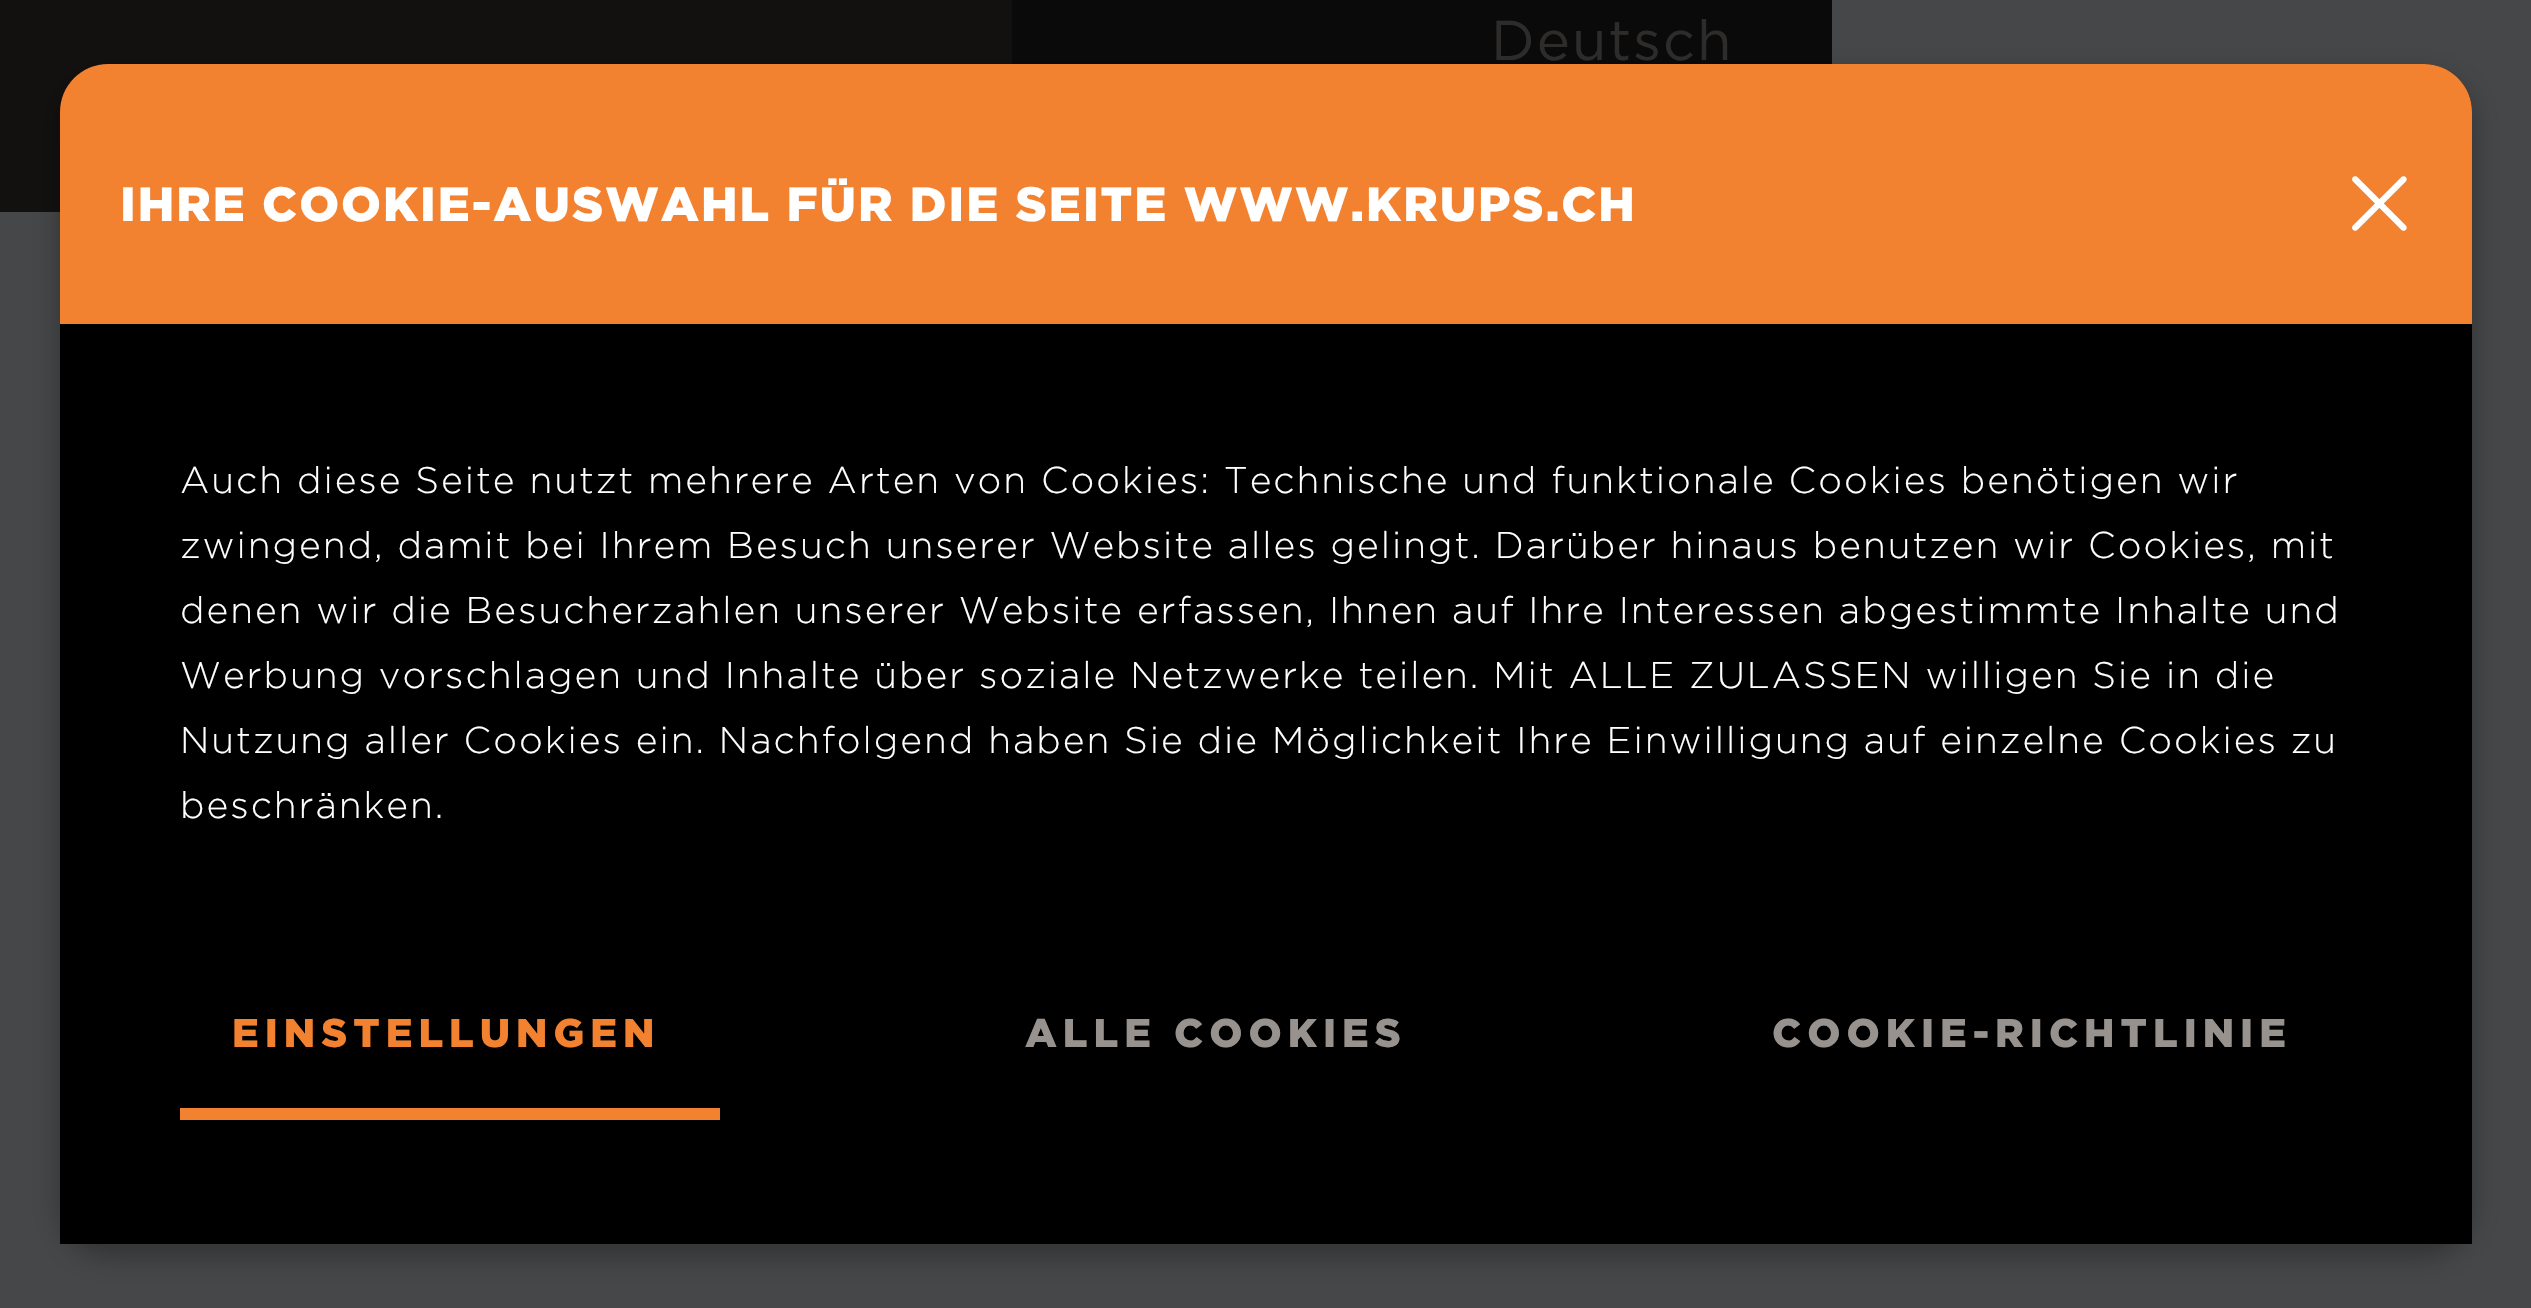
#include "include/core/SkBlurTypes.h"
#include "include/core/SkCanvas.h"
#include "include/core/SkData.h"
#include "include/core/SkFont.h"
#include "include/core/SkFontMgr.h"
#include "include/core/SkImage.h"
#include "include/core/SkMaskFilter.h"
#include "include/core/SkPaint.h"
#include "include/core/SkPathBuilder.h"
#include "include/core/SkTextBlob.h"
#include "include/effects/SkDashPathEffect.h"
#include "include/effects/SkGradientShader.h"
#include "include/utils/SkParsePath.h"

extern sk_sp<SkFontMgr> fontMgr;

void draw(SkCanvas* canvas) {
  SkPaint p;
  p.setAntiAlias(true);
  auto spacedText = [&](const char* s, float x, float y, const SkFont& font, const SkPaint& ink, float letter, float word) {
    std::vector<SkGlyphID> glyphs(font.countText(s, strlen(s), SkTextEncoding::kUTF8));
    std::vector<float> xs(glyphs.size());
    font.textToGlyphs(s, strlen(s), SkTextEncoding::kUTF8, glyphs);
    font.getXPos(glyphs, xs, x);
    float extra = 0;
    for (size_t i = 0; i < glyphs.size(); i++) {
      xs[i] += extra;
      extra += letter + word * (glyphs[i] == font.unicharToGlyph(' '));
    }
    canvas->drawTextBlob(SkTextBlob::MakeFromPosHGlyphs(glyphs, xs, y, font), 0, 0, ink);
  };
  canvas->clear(SkColorSetRGB(70, 71, 72));
  p.setColor(SkColorSetRGB(18, 17, 16));
  canvas->drawRect(SkRect::MakeLTRB(0, 0, 1012, 212), p);
  p.setColor(SkColorSetRGB(11, 10, 10));
  canvas->drawRect(SkRect::MakeLTRB(1012, 0, 1832, 64), p);
  p.setColor(SkColorSetARGB(77, 0, 0, 0));
  p.setMaskFilter(SkMaskFilter::MakeBlur(kNormal_SkBlurStyle, 14));
  canvas->drawRoundRect(SkRect::MakeLTRB(60, 76, 2472, 1256), 48, 48, p);
  p.setMaskFilter(nullptr);
  p.setColor(SK_ColorBLACK);
  canvas->drawPath(SkPathBuilder().moveTo(108, 64).lineTo(2424, 64).cubicTo(2450.5f, 64, 2472, 85.5f, 2472, 112).lineTo(2472, 1244).lineTo(60, 1244).lineTo(60, 112).cubicTo(60, 85.5f, 81.5f, 64, 108, 64).close().detach(), p);
  p.setColor(SkColorSetRGB(243, 130, 48));
  canvas->drawPath(SkPathBuilder().moveTo(108, 64).lineTo(2424, 64).cubicTo(2450.5f, 64, 2472, 85.5f, 2472, 112).lineTo(2472, 324).lineTo(60, 324).lineTo(60, 112).cubicTo(60, 85.5f, 81.5f, 64, 108, 64).close().detach(), p);
  canvas->drawImageRect(SkImages::DeferredFromEncodedData(SkData::MakeFromFileName("images/1.png")), SkRect::MakeLTRB(2352, 176, 2407, 231), SkSamplingOptions());
  canvas->drawRect(SkRect::MakeLTRB(180, 1108, 720, 1120), p);
  SkFont font1(fontMgr->matchFamilyStyle("Gotham", SkFontStyle::Normal()), 56);
  font1.setSubpixel(true);
  p.setColor(SkColorSetRGB(45, 44, 43));
  spacedText("Deutsch", 1491, 60, font1, p, 2, 0);
  SkFont font2(fontMgr->matchFamilyStyle("Gotham", SkFontStyle(900, SkFontStyle::kNormal_Width, SkFontStyle::kUpright_Slant)), 48);
  font2.setSubpixel(true);
  p.setColor(SK_ColorWHITE);
  spacedText("IHRE COOKIE-AUSWAHL FÜR DIE SEITE WWW.KRUPS.CH", 120, 221, font2, p, 2, 0);
  SkFont font3(fontMgr->matchFamilyStyle("Gotham", SkFontStyle(300, SkFontStyle::kNormal_Width, SkFontStyle::kUpright_Slant)), 37.12f);
  font3.setSubpixel(true);
  spacedText("Auch diese Seite nutzt mehrere Arten von Cookies: Technische und funktionale Cookies benötigen wir", 180, 493, font3, p, 2, -0.25f);
  spacedText("zwingend, damit bei Ihrem Besuch unserer Website alles gelingt. Darüber hinaus benutzen wir Cookies, mit", 180, 558, font3, p, 2, -0.25f);
  spacedText("denen wir die Besucherzahlen unserer Website erfassen, Ihnen auf Ihre Interessen abgestimmte Inhalte und", 180, 623, font3, p, 2, -0.25f);
  spacedText("Werbung vorschlagen und Inhalte über soziale Netzwerke teilen. Mit ALLE ZULASSEN willigen Sie in die", 180, 688, font3, p, 2, -0.25f);
  spacedText("Nutzung aller Cookies ein. Nachfolgend haben Sie die Möglichkeit Ihre Einwilligung auf einzelne Cookies zu", 180, 753, font3, p, 2, -0.25f);
  spacedText("beschränken.", 180, 818, font3, p, 2, 0);
  SkFont font4(fontMgr->matchFamilyStyle("Gotham", SkFontStyle(900, SkFontStyle::kNormal_Width, SkFontStyle::kUpright_Slant)), 40);
  font4.setSubpixel(true);
  p.setColor(SkColorSetRGB(243, 130, 48));
  spacedText("EINSTELLUNGEN", 232, 1047, font4, p, 6, 0);
  p.setColor(SkColorSetRGB(151, 146, 142));
  spacedText("ALLE COOKIES", 1025, 1047, font4, p, 6, 0);
  spacedText("COOKIE-RICHTLINIE", 1772, 1047, font4, p, 6, 0);
}
